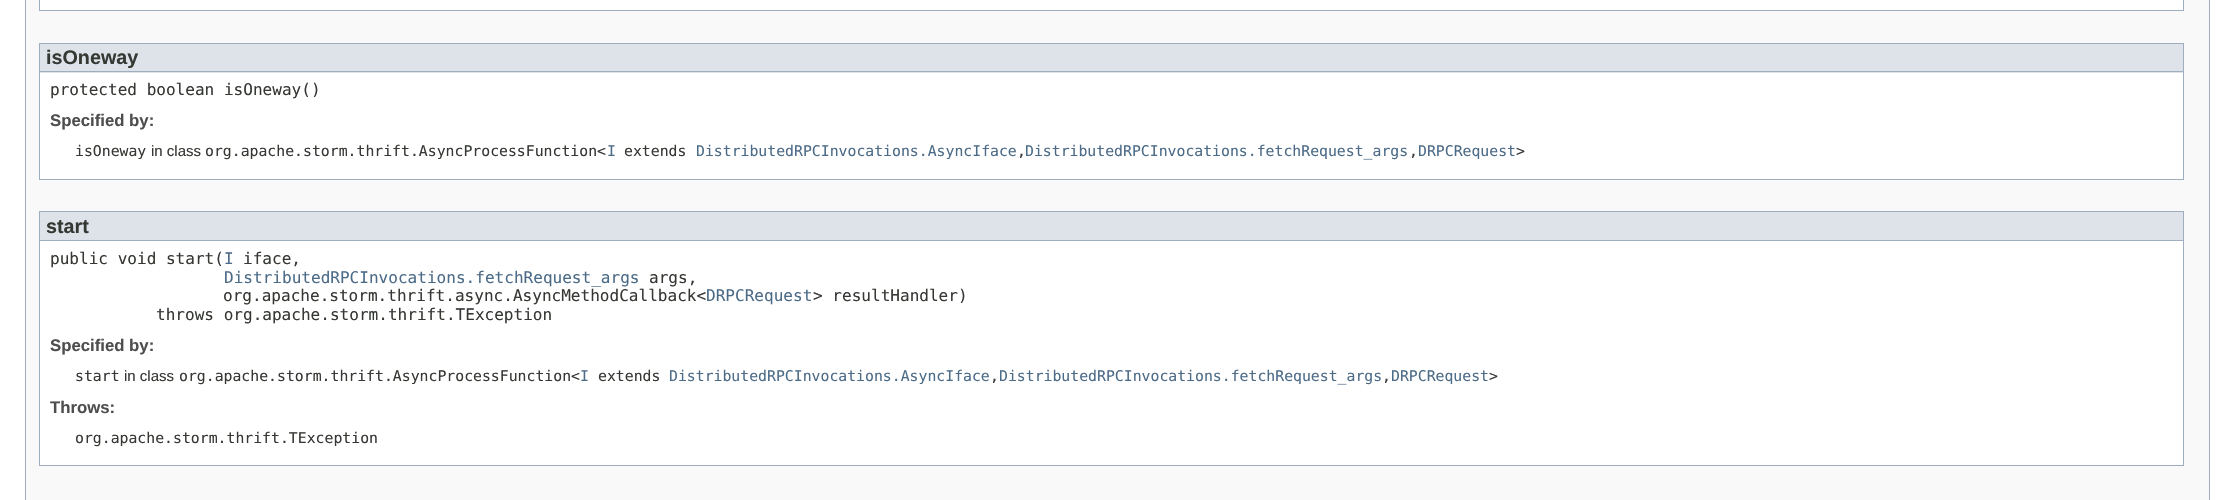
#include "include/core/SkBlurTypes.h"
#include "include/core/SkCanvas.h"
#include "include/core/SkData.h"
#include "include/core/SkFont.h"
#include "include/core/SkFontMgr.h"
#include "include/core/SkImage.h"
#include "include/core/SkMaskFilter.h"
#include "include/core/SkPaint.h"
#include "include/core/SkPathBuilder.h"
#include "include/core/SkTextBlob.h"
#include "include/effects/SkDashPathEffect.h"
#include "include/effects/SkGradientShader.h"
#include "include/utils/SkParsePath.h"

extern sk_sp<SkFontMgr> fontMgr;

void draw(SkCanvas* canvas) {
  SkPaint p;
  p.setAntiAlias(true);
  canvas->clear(SK_ColorWHITE);
  p.setColor(SkColorSetRGB(249, 249, 249));
  canvas->drawRect(SkRect::MakeLTRB(25.5f, -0.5f, 2209.5f, 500.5f), p);
  p.setStyle(SkPaint::kStroke_Style);
  p.setStrokeWidth(1);
  p.setColor(SkColorSetRGB(158, 173, 192));
  canvas->drawRect(SkRect::MakeLTRB(25.5f, -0.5f, 2209.5f, 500.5f), p);
  p.setStyle(SkPaint::kFill_Style);
  p.setColor(SK_ColorWHITE);
  canvas->drawRect(SkRect::MakeLTRB(40, 0, 2183, 10), p);
  p.setColor(SkColorSetRGB(158, 173, 192));
  canvas->drawRect(SkRect::MakeLTRB(2183, 0, 2184, 11), p);
  canvas->drawRect(SkRect::MakeLTRB(39, 10, 2184, 11), p);
  canvas->drawRect(SkRect::MakeLTRB(39, 0, 40, 11), p);
  p.setColor(SK_ColorWHITE);
  canvas->drawRect(SkRect::MakeLTRB(40, 73, 2183, 179), p);
  p.setColor(SkColorSetRGB(158, 173, 192));
  canvas->drawRect(SkRect::MakeLTRB(2183, 43, 2184, 180), p);
  canvas->drawRect(SkRect::MakeLTRB(39, 179, 2184, 180), p);
  canvas->drawRect(SkRect::MakeLTRB(39, 43, 40, 180), p);
  p.setColor(SkColorSetRGB(222, 227, 233));
  canvas->drawRect(SkRect::MakeLTRB(40, 44, 2183, 73), p);
  p.setColor(SkColorSetRGB(158, 173, 192));
  canvas->drawRect(SkRect::MakeLTRB(40, 43, 2183, 44), p);
  canvas->drawRect(SkRect::MakeLTRB(40, 71, 2183, 72), p);
  p.setColor(SK_ColorWHITE);
  canvas->drawRect(SkRect::MakeLTRB(40, 241, 2183, 465), p);
  p.setColor(SkColorSetRGB(158, 173, 192));
  canvas->drawRect(SkRect::MakeLTRB(2183, 211, 2184, 466), p);
  canvas->drawRect(SkRect::MakeLTRB(39, 465, 2184, 466), p);
  canvas->drawRect(SkRect::MakeLTRB(39, 211, 40, 466), p);
  p.setColor(SkColorSetRGB(222, 227, 233));
  canvas->drawRect(SkRect::MakeLTRB(40, 212, 2183, 240), p);
  p.setColor(SkColorSetRGB(158, 173, 192));
  canvas->drawRect(SkRect::MakeLTRB(40, 211, 2183, 212), p);
  canvas->drawRect(SkRect::MakeLTRB(40, 240, 2183, 241), p);
  SkFont font1(fontMgr->matchFamilyStyle("Liberation Sans", SkFontStyle::Bold()), 19.75f);
  font1.setSubpixel(true);
  p.setColor(SkColorSetRGB(53, 56, 51));
  canvas->drawString("isOneway", 46, 64, font1, p);
  SkFont font2(fontMgr->matchFamilyStyle("DejaVu Sans Mono", SkFontStyle::Normal()), 16.05f);
  font2.setSubpixel(true);
  canvas->drawString("protected boolean isOneway()", 50, 95, font2, p);
  SkFont font3(fontMgr->matchFamilyStyle("Liberation Sans", SkFontStyle::Bold()), 16.75f);
  font3.setSubpixel(true);
  p.setColor(SkColorSetRGB(78, 78, 78));
  canvas->drawString("Specified by:", 50, 126, font3, p);
  SkFont font4(fontMgr->matchFamilyStyle("DejaVu Sans Mono", SkFontStyle::Normal()), 14.8f);
  font4.setSubpixel(true);
  p.setColor(SkColorSetRGB(53, 56, 51));
  canvas->drawString("isOneway", 75, 156, font4, p);
  SkFont font5(fontMgr->matchFamilyStyle("Liberation Sans", SkFontStyle::Normal()), 15);
  font5.setSubpixel(true);
  canvas->drawString("in class", 151, 156, font5, p);
  canvas->drawString("org.apache.storm.thrift.AsyncProcessFunction<", 205, 156, font4, p);
  p.setColor(SkColorSetRGB(76, 107, 135));
  canvas->drawString("I", 607, 156, font4, p);
  p.setColor(SkColorSetRGB(53, 56, 51));
  canvas->drawString("extends", 624, 156, font4, p);
  p.setColor(SkColorSetRGB(76, 107, 135));
  canvas->drawString("DistributedRPCInvocations.AsyncIface", 696, 156, font4, p);
  canvas->drawString("DistributedRPCInvocations.fetchRequest_args", 1025, 156, font4, p);
  canvas->drawString("DRPCRequest", 1418, 156, font4, p);
  p.setColor(SkColorSetRGB(53, 56, 51));
  canvas->drawString(">", 1516, 156, font4, p);
  canvas->drawString(",", 1017, 156, font4, p);
  canvas->drawString(",", 1409, 156, font4, p);
  canvas->drawString("start", 46, 233, font1, p);
  canvas->drawString("public void start(", 50, 264, font2, p);
  p.setColor(SkColorSetRGB(76, 107, 135));
  canvas->drawString("I", 224, 264, font2, p);
  p.setColor(SkColorSetRGB(53, 56, 51));
  canvas->drawString("iface,", 243, 264, font2, p);
  p.setColor(SkColorSetRGB(76, 107, 135));
  canvas->drawString("DistributedRPCInvocations.fetchRequest_args", 224, 283, font2, p);
  p.setColor(SkColorSetRGB(53, 56, 51));
  canvas->drawString("args,", 649, 283, font2, p);
  canvas->drawString("org.apache.storm.thrift.async.AsyncMethodCallback<", 223, 301, font2, p);
  p.setColor(SkColorSetRGB(76, 107, 135));
  canvas->drawString("DRPCRequest", 706, 301, font2, p);
  p.setColor(SkColorSetRGB(53, 56, 51));
  canvas->drawString("> resultHandler)", 813, 301, font2, p);
  canvas->drawString("throws org.apache.storm.thrift.TException", 156, 320, font2, p);
  p.setColor(SkColorSetRGB(78, 78, 78));
  canvas->drawString("Specified by:", 50, 351, font3, p);
  p.setColor(SkColorSetRGB(53, 56, 51));
  canvas->drawString("start", 75, 381, font4, p);
  canvas->drawString("in class", 124, 381, font5, p);
  canvas->drawString("org.apache.storm.thrift.AsyncProcessFunction<", 179, 381, font4, p);
  p.setColor(SkColorSetRGB(76, 107, 135));
  canvas->drawString("I", 580, 381, font4, p);
  p.setColor(SkColorSetRGB(53, 56, 51));
  canvas->drawString("extends", 598, 381, font4, p);
  p.setColor(SkColorSetRGB(76, 107, 135));
  canvas->drawString("DistributedRPCInvocations.AsyncIface", 669, 381, font4, p);
  canvas->drawString("DistributedRPCInvocations.fetchRequest_args", 999, 381, font4, p);
  canvas->drawString("DRPCRequest", 1391, 381, font4, p);
  p.setColor(SkColorSetRGB(53, 56, 51));
  canvas->drawString(">", 1489, 381, font4, p);
  canvas->drawString(",", 990, 381, font4, p);
  canvas->drawString(",", 1382, 381, font4, p);
  p.setColor(SkColorSetRGB(78, 78, 78));
  canvas->drawString("Throws:", 50, 413, font3, p);
  p.setColor(SkColorSetRGB(53, 56, 51));
  canvas->drawString("org.apache.storm.thrift.TException", 75, 443, font4, p);
}
